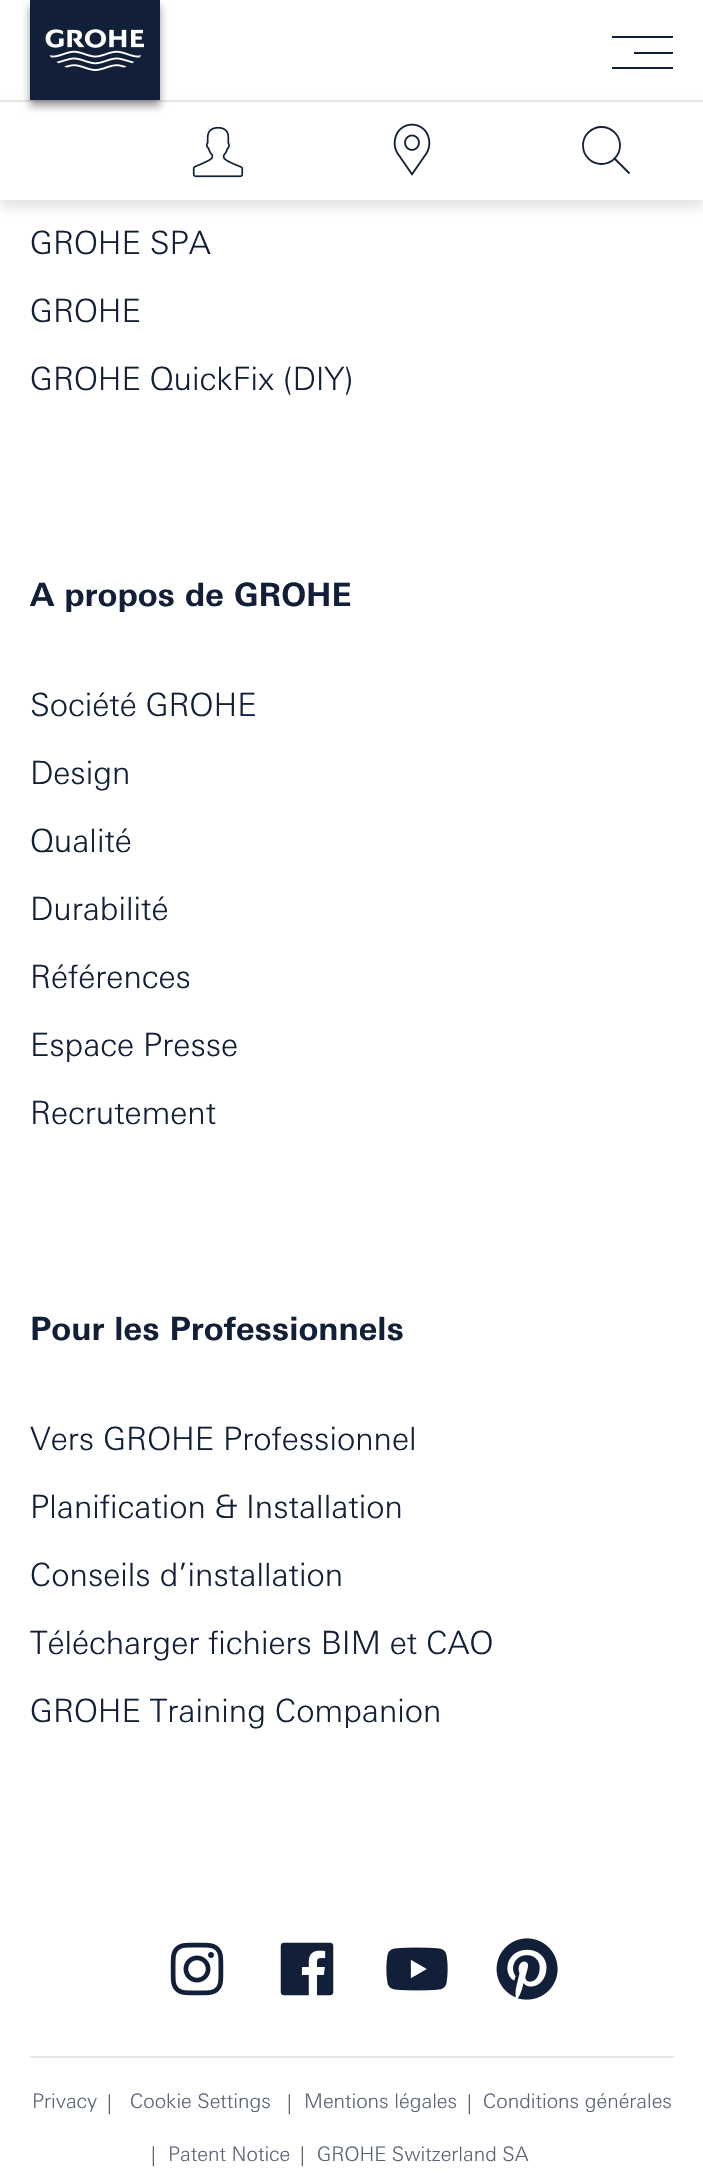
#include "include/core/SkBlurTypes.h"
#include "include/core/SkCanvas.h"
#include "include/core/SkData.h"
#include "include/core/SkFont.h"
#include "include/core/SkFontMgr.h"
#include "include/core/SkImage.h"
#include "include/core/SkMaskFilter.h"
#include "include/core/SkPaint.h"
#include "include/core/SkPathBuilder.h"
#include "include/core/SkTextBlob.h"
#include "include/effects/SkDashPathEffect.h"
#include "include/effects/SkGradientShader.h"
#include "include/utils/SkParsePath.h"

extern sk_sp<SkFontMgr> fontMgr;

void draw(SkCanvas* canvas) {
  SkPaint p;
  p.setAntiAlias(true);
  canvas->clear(SK_ColorWHITE);
  p.setColor(SkColorSetARGB(26, 0, 0, 0));
  p.setMaskFilter(SkMaskFilter::MakeBlur(kNormal_SkBlurStyle, 5));
  canvas->drawRect(SkRect::MakeLTRB(0, 108, 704, 208), p);
  p.setMaskFilter(nullptr);
  p.setColor(SK_ColorWHITE);
  canvas->drawRect(SkRect::MakeLTRB(0, 102, 703, 200), p);
  p.setColor(SkColorSetRGB(230, 230, 230));
  canvas->drawRect(SkRect::MakeLTRB(0, 100, 703, 102), p);
  p.setColor(SkColorSetARGB(102, 0, 0, 0));
  p.setMaskFilter(SkMaskFilter::MakeBlur(kNormal_SkBlurStyle, 4));
  canvas->drawRect(SkRect::MakeLTRB(30, 6, 160, 106), p);
  p.setMaskFilter(nullptr);
  p.setColor(SkColorSetRGB(17, 32, 56));
  canvas->drawRect(SkRect::MakeLTRB(30, 0, 160, 100), p);
  canvas->drawImageRect(SkImages::DeferredFromEncodedData(SkData::MakeFromFileName("images/1.png")), SkRect::MakeLTRB(45, 29, 144, 71), SkSamplingOptions());
  canvas->drawPath(SkPathBuilder().moveTo(612, 36).lineTo(673, 36).lineTo(673, 38).lineTo(612, 38).close().moveTo(634, 52).lineTo(673, 52).lineTo(673, 54).lineTo(634, 54).close().moveTo(612, 67).lineTo(673, 67).lineTo(673, 69).lineTo(612, 69).close().detach(), p);
  canvas->drawImageRect(SkImages::DeferredFromEncodedData(SkData::MakeFromFileName("images/2.png")), SkRect::MakeLTRB(192, 126, 244, 178), SkSamplingOptions());
  canvas->drawImageRect(SkImages::DeferredFromEncodedData(SkData::MakeFromFileName("images/3.png")), SkRect::MakeLTRB(393, 123, 431, 176), SkSamplingOptions());
  p.setStyle(SkPaint::kStroke_Style);
  p.setStrokeWidth(1.8f);
  canvas->drawPath(SkPathBuilder().moveTo(629.5f, 173.5f).lineTo(614, 158).close().detach(), p);
  canvas->drawCircle(601.5f, 145.5f, 18.5f, p);
  canvas->drawImageRect(SkImages::DeferredFromEncodedData(SkData::MakeFromFileName("images/4.png")), SkRect::MakeLTRB(170, 1942, 224, 1996), SkSamplingOptions());
  canvas->drawImageRect(SkImages::DeferredFromEncodedData(SkData::MakeFromFileName("images/5.png")), SkRect::MakeLTRB(280, 1942, 334, 1996), SkSamplingOptions());
  canvas->drawImageRect(SkImages::DeferredFromEncodedData(SkData::MakeFromFileName("images/6.png")), SkRect::MakeLTRB(386, 1947, 448, 1991), SkSamplingOptions());
  canvas->drawImageRect(SkImages::DeferredFromEncodedData(SkData::MakeFromFileName("images/7.png")), SkRect::MakeLTRB(496, 1938, 558, 2000), SkSamplingOptions());
  p.setStyle(SkPaint::kFill_Style);
  p.setColor(SkColorSetRGB(230, 230, 230));
  canvas->drawRect(SkRect::MakeLTRB(30, 2056, 674, 2058), p);
  SkFont font1(fontMgr->matchFamilyStyle("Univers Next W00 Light", SkFontStyle(300, SkFontStyle::kNormal_Width, SkFontStyle::kUpright_Slant)), 32);
  font1.setSubpixel(true);
  p.setColor(SkColorSetRGB(17, 32, 56));
  canvas->drawString("GROHE SPA", 30, 254, font1, p);
  canvas->drawString("GROHE", 30, 322, font1, p);
  canvas->drawString("GROHE QuickFix (DIY)", 30, 390, font1, p);
  SkFont font2(fontMgr->matchFamilyStyle("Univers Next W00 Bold", SkFontStyle::Bold()), 32);
  font2.setSubpixel(true);
  canvas->drawString("A propos de GROHE", 30, 606, font2, p);
  canvas->drawString("Société GROHE", 30, 716, font1, p);
  canvas->drawString("Design", 30, 784, font1, p);
  canvas->drawString("Qualité", 30, 852, font1, p);
  canvas->drawString("Durabilité", 30, 920, font1, p);
  canvas->drawString("Références", 30, 988, font1, p);
  canvas->drawString("Espace Presse", 30, 1056, font1, p);
  canvas->drawString("Recrutement", 30, 1124, font1, p);
  canvas->drawString("Pour les Professionnels", 30, 1340, font2, p);
  canvas->drawString("Vers GROHE Professionnel", 30, 1450, font1, p);
  canvas->drawString("Planification & Installation", 30, 1518, font1, p);
  canvas->drawString("Conseils d’installation", 30, 1586, font1, p);
  canvas->drawString("Télécharger fichiers BIM et CAO", 30, 1654, font1, p);
  canvas->drawString("GROHE Training Companion", 30, 1722, font1, p);
  SkFont font3(fontMgr->matchFamilyStyle("Univers Next W00 Light", SkFontStyle(300, SkFontStyle::kNormal_Width, SkFontStyle::kUpright_Slant)), 20);
  font3.setSubpixel(true);
  p.setColor(SkColorSetRGB(88, 99, 116));
  canvas->drawString("Privacy", 32, 2108, font3, p);
  canvas->drawString("|", 107, 2110, font3, p);
  canvas->drawString("Cookie Settings", 130, 2108, font3, p);
  canvas->drawString("|", 287, 2110, font3, p);
  canvas->drawString("Mentions légales", 304, 2108, font3, p);
  canvas->drawString("|", 467, 2110, font3, p);
  canvas->drawString("Conditions générales", 483, 2108, font3, p);
  canvas->drawString("|", 151, 2162, font3, p);
  canvas->drawString("Patent Notice", 168, 2161, font3, p);
  canvas->drawString("|", 300, 2162, font3, p);
  canvas->drawString("GROHE Switzerland SA", 317, 2161, font3, p);
}
